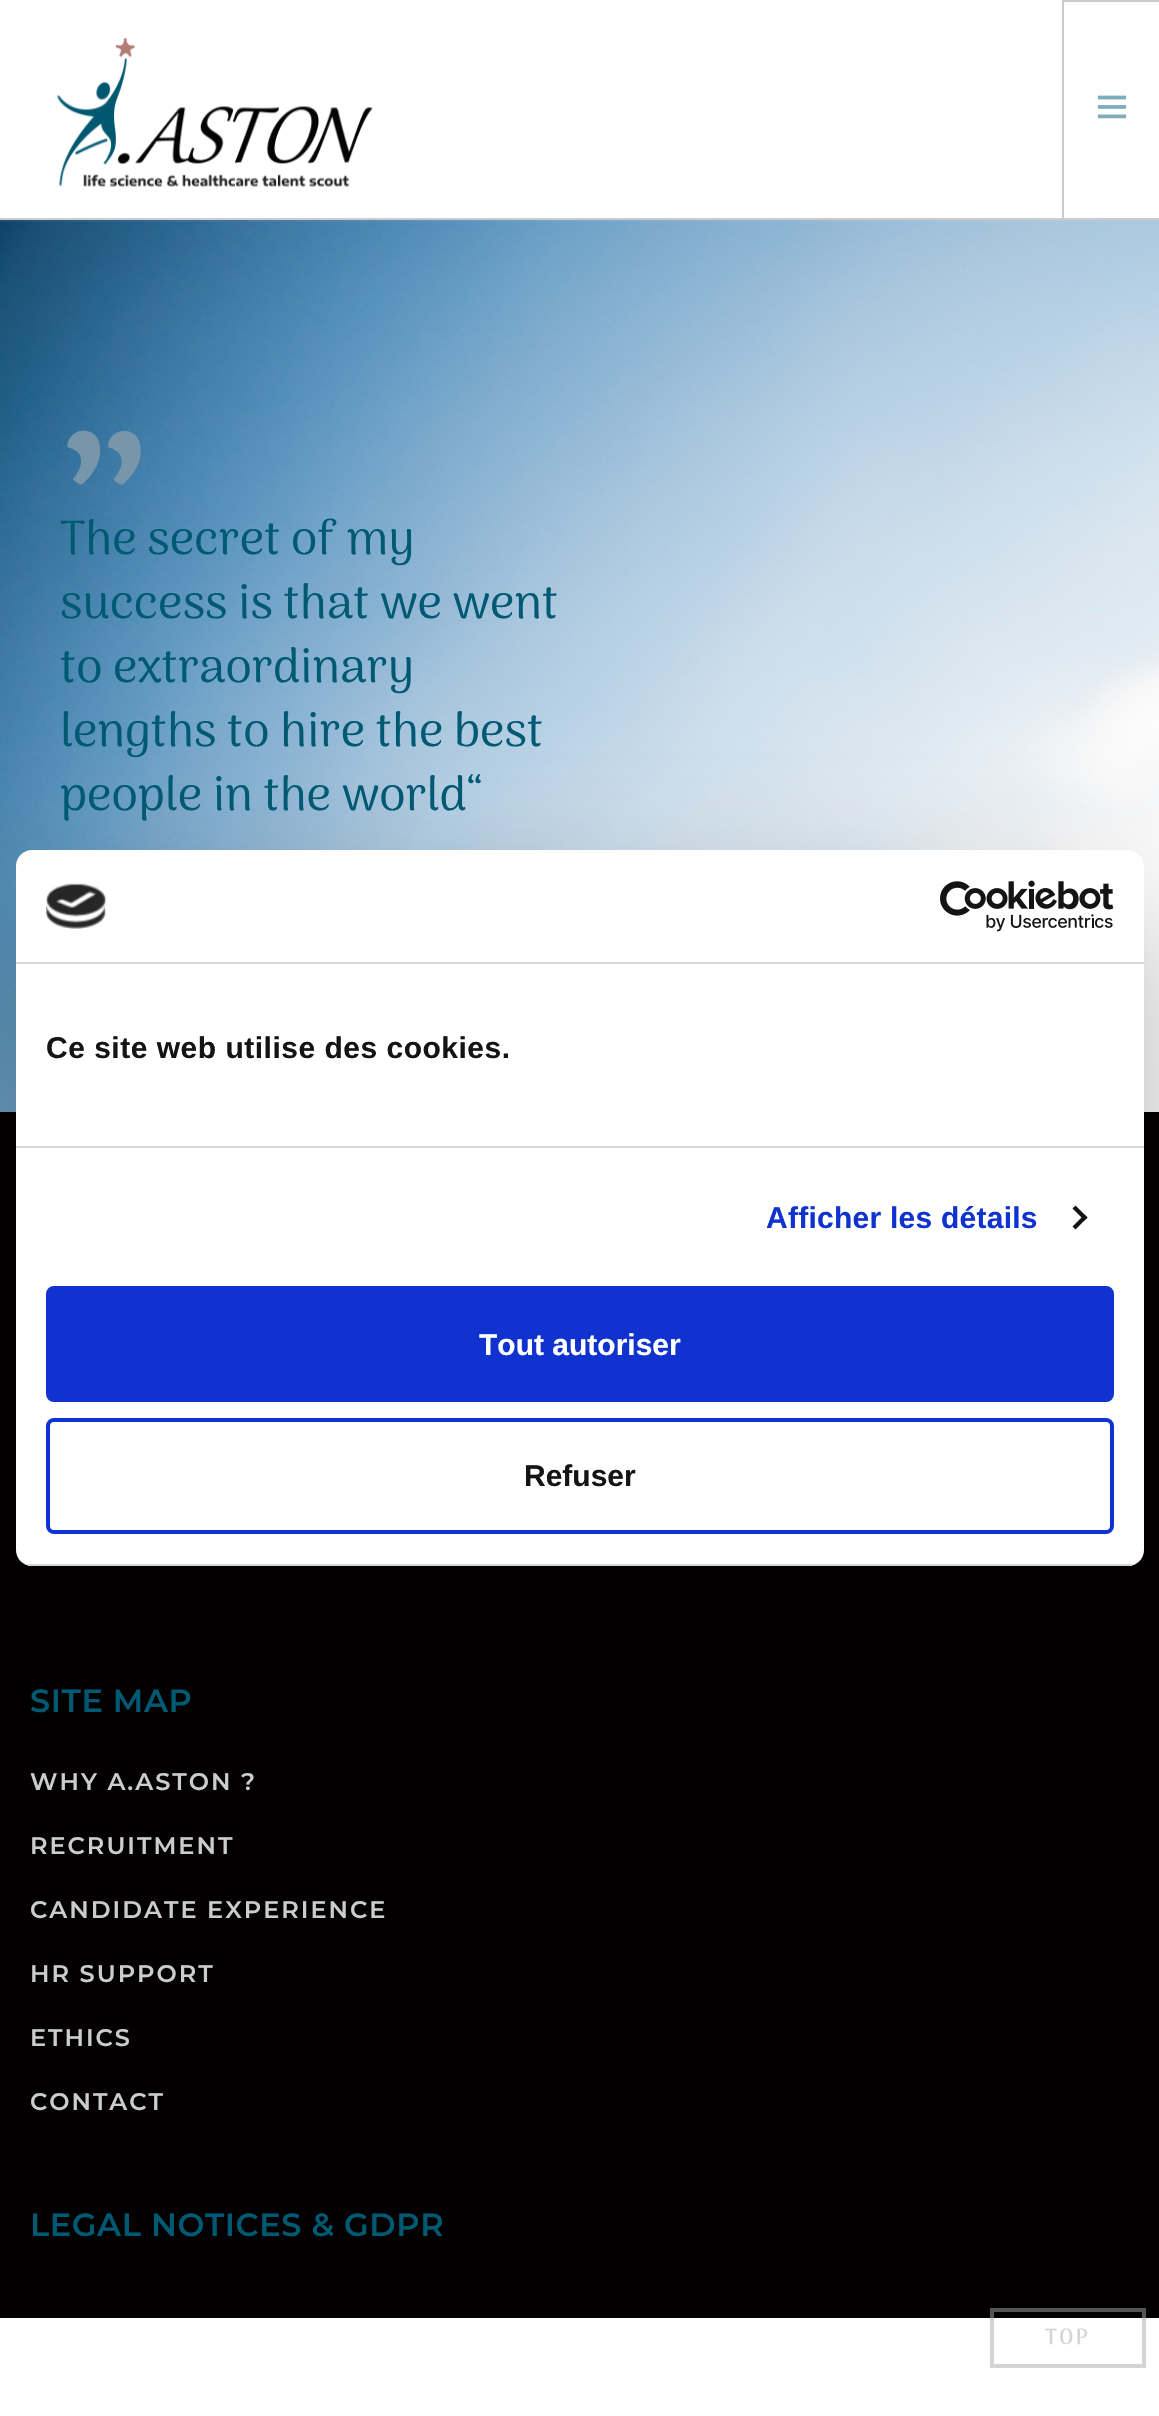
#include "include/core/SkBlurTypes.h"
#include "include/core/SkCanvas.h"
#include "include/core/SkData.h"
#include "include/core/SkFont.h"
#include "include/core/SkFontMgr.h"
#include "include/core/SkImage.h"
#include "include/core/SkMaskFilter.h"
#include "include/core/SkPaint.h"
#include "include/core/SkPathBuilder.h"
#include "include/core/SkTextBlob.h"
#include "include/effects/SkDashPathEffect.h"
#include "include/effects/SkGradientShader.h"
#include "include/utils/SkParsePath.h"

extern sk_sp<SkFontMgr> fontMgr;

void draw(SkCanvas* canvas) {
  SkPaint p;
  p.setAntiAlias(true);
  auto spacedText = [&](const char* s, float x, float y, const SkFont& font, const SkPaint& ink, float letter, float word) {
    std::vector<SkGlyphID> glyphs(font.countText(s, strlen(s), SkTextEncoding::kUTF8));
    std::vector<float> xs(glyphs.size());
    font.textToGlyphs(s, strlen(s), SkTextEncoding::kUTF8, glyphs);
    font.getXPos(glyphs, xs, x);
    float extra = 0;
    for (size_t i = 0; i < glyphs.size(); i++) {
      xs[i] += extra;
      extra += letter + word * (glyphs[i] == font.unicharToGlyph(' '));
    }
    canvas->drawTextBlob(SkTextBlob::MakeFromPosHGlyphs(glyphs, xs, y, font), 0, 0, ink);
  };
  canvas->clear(SK_ColorWHITE);
  p.setColor(SkColorSetRGB(204, 204, 204));
  canvas->drawRect(SkRect::MakeLTRB(0, 218, 1159, 220), p);
  canvas->drawImageRect(SkImages::DeferredFromEncodedData(SkData::MakeFromFileName("images/1.png")), SkRect::MakeLTRB(57, 37, 373, 188), SkSamplingOptions());
  canvas->drawRect(SkRect::MakeLTRB(1062, 0, 1159, 2), p);
  canvas->drawRect(SkRect::MakeLTRB(1062, 0, 1064, 218), p);
  canvas->drawImageRect(SkImages::DeferredFromEncodedData(SkData::MakeFromFileName("images/2.png")), SkRect::MakeLTRB(1097, 95, 1127, 119), SkSamplingOptions());
  canvas->drawImageRect(SkImages::DeferredFromEncodedData(SkData::MakeFromFileName("images/3.png")), SkRect::MakeLTRB(0, 220, 1159, 1112), SkSamplingOptions());
  p.setColor(SkColorSetRGB(2, 0, 0));
  canvas->drawRect(SkRect::MakeLTRB(0, 1112, 1159, 2318), p);
  p.setStyle(SkPaint::kStroke_Style);
  p.setStrokeWidth(4);
  p.setColor(SkColorSetARGB(128, 170, 170, 170));
  canvas->drawRect(SkRect::MakeLTRB(992, 2310, 1144, 2366), p);
  p.setStyle(SkPaint::kFill_Style);
  p.setColor(SkColorSetARGB(77, 0, 0, 0));
  p.setMaskFilter(SkMaskFilter::MakeBlur(kNormal_SkBlurStyle, 68));
  canvas->drawRoundRect(SkRect::MakeLTRB(16, 914, 1144, 1630), 16, 16, p);
  p.setMaskFilter(nullptr);
  p.setColor(SK_ColorWHITE);
  canvas->drawRoundRect(SkRect::MakeLTRB(16, 850, 1144, 1566), 16, 16, p);
  p.setColor(SkColorSetRGB(214, 214, 214));
  canvas->drawRect(SkRect::MakeLTRB(16, 962, 1144, 964), p);
  canvas->drawImageRect(SkImages::DeferredFromEncodedData(SkData::MakeFromFileName("images/4.png")), SkRect::MakeLTRB(46, 883, 106, 929), SkSamplingOptions());
  canvas->drawImageRect(SkImages::DeferredFromEncodedData(SkData::MakeFromFileName("images/5.png")), SkRect::MakeLTRB(940, 880, 1114, 932), SkSamplingOptions());
  canvas->drawRect(SkRect::MakeLTRB(16, 1146, 1144, 1148), p);
  p.setColor(SkColorSetRGB(20, 20, 20));
  canvas->drawPath(SkPathBuilder().moveTo(1075.5f, 1205.5f).lineTo(1087.5f, 1217.5f).lineTo(1084.5f, 1220.5f).lineTo(1072.5f, 1208.5f).close().detach(), p);
  canvas->drawPath(SkPathBuilder().moveTo(1084.5f, 1214.5f).lineTo(1087.5f, 1217.5f).lineTo(1075.5f, 1229.5f).lineTo(1072.5f, 1226.5f).close().detach(), p);
  canvas->save();
  canvas->clipPath(SkPathBuilder().moveTo(32, 850).lineTo(1128, 850).cubicTo(1137, 850, 1144, 857, 1144, 866).lineTo(1144, 1550).cubicTo(1144, 1559, 1137, 1566, 1128, 1566).lineTo(32, 1566).cubicTo(23, 1566, 16, 1559, 16, 1550).lineTo(16, 866).cubicTo(16, 857, 23, 850, 32, 850).close().detach(), true);
  p.setColor(SkColorSetRGB(214, 214, 214));
  canvas->drawRect(SkRect::MakeLTRB(16, 1564, 1144, 1566), p);
  canvas->restore();
  p.setColor(SkColorSetRGB(16, 50, 207));
  canvas->drawRoundRect(SkRect::MakeLTRB(48, 1288, 1112, 1400), 6, 6, p);
  p.setStyle(SkPaint::kStroke_Style);
  canvas->drawRoundRect(SkRect::MakeLTRB(48, 1288, 1112, 1400), 6, 6, p);
  canvas->drawRoundRect(SkRect::MakeLTRB(48, 1420, 1112, 1532), 6, 6, p);
  SkFont font1(fontMgr->matchFamilyStyle("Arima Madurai", SkFontStyle::Bold()), 240);
  font1.setSubpixel(true);
  p.setStyle(SkPaint::kFill_Style);
  p.setColor(SkColorSetRGB(120, 150, 170));
  canvas->drawString("”", 60, 612, font1, p);
  SkFont font2(fontMgr->matchFamilyStyle("Arima Madurai", SkFontStyle::Normal()), 48);
  font2.setSubpixel(true);
  p.setColor(SkColorSetRGB(0, 89, 114));
  canvas->drawString("The secret of my", 60, 554, font2, p);
  canvas->drawString("success is that we went", 60, 618, font2, p);
  canvas->drawString("to extraordinary", 60, 682, font2, p);
  canvas->drawString("lengths to hire the best", 60, 746, font2, p);
  canvas->drawString("people in the world“", 60, 810, font2, p);
  SkFont font3(fontMgr->matchFamilyStyle("Montserrat", SkFontStyle(600, SkFontStyle::kNormal_Width, SkFontStyle::kUpright_Slant)), 32);
  font3.setSubpixel(true);
  spacedText("SITE MAP", 30, 1712, font3, p, 0.6f, 0);
  SkFont font4(fontMgr->matchFamilyStyle("Montserrat", SkFontStyle(600, SkFontStyle::kNormal_Width, SkFontStyle::kUpright_Slant)), 24);
  font4.setSubpixel(true);
  p.setColor(SkColorSetRGB(204, 204, 204));
  spacedText("WHY A.ASTON ?", 30, 1790, font4, p, 2, 0);
  spacedText("RECRUITMENT", 30, 1854, font4, p, 2, 0);
  spacedText("CANDIDATE EXPERIENCE", 30, 1918, font4, p, 2, 0);
  spacedText("HR SUPPORT", 30, 1982, font4, p, 2, 0);
  spacedText("ETHICS", 30, 2046, font4, p, 2, 0);
  spacedText("CONTACT", 30, 2110, font4, p, 2, 0);
  p.setColor(SkColorSetRGB(0, 89, 114));
  spacedText("LEGAL NOTICES & GDPR", 30, 2236, font3, p, 0.6f, 0);
  SkFont font5(fontMgr->matchFamilyStyle("Arima Madurai", SkFontStyle::Bold()), 22);
  font5.setSubpixel(true);
  p.setColor(SkColorSetRGB(213, 213, 213));
  spacedText("TOP", 1045, 2344, font5, p, 2, 0);
  SkFont font6(fontMgr->matchFamilyStyle("Liberation Sans", SkFontStyle::Bold()), 30);
  font6.setSubpixel(true);
  p.setColor(SkColorSetRGB(20, 20, 20));
  spacedText("Ce site web utilise des cookies.", 46, 1058, font6, p, 0.5f, 0);
  p.setColor(SkColorSetRGB(16, 50, 207));
  spacedText("Afficher les détails", 766, 1228, font6, p, 0.25f, 0);
  p.setColor(SK_ColorWHITE);
  canvas->drawString("Tout autoriser", 479, 1355, font6, p);
  p.setColor(SkColorSetRGB(20, 20, 20));
  canvas->drawString("Refuser", 524, 1486, font6, p);
}
